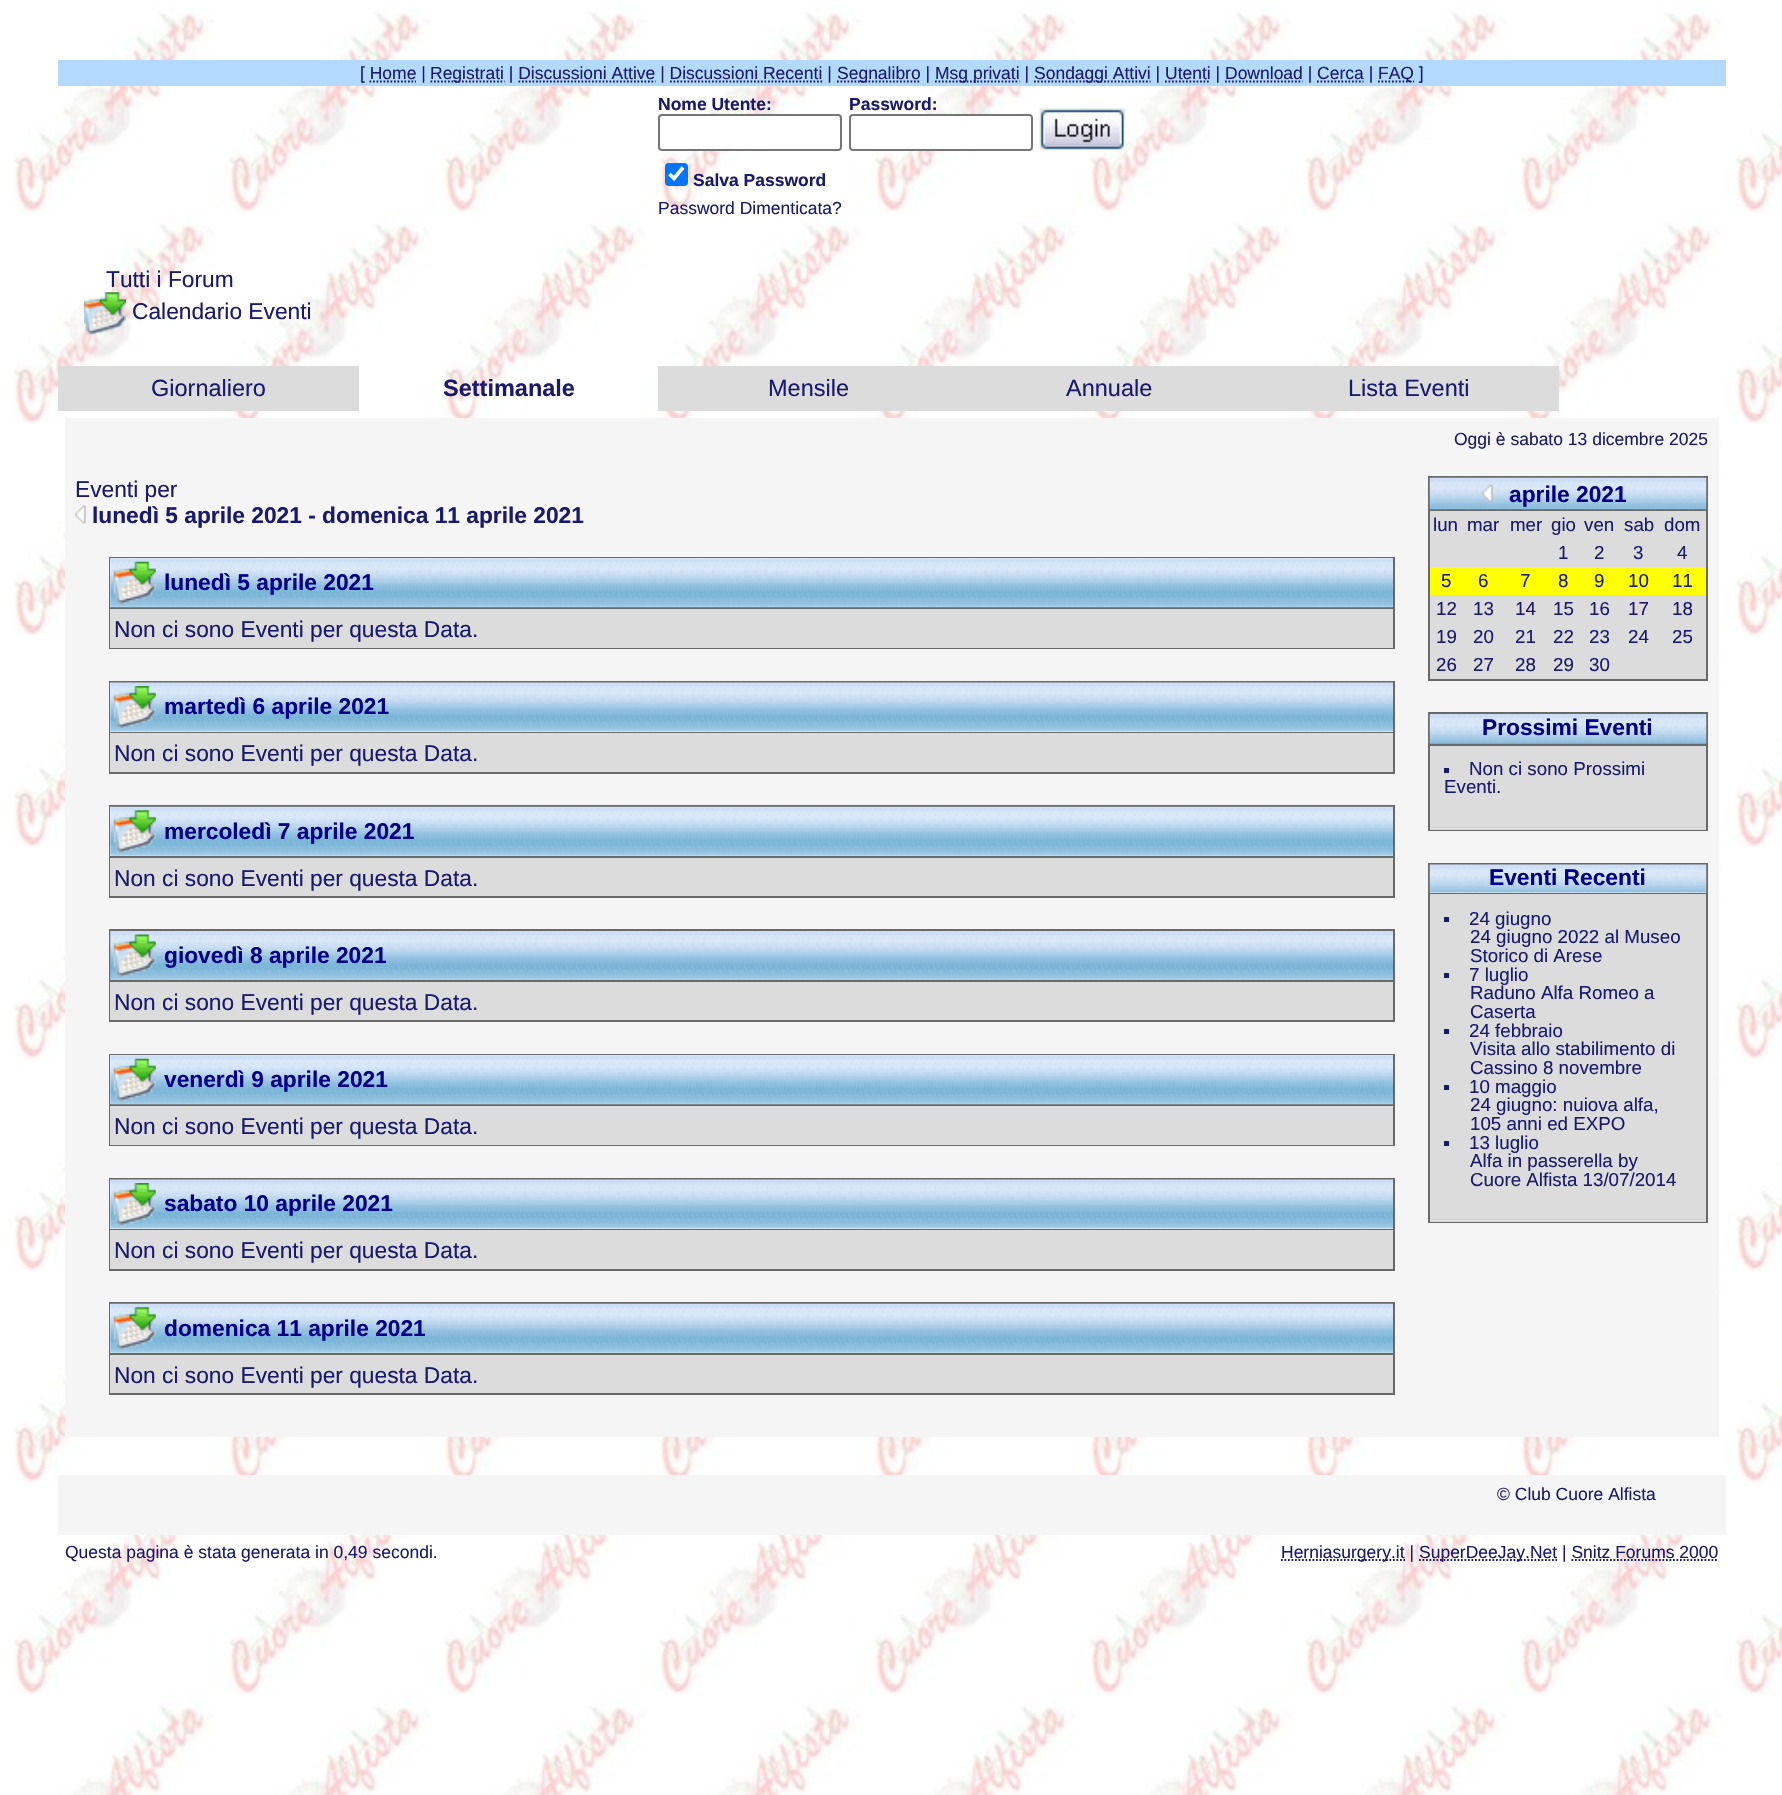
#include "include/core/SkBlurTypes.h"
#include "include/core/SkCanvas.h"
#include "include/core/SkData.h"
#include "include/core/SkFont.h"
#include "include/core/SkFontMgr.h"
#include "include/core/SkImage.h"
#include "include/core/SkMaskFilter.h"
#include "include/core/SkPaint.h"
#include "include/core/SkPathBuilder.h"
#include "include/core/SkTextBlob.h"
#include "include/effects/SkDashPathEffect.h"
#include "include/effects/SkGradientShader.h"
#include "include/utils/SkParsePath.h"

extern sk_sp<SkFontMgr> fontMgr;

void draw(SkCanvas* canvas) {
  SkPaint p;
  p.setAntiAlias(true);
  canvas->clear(SK_ColorWHITE);
  canvas->drawImageRect(SkImages::DeferredFromEncodedData(SkData::MakeFromFileName("images/1.png")), SkRect::MakeLTRB(14, 6, 1782, 1795), SkSamplingOptions());
  p.setColor(SkColorSetRGB(179, 217, 255));
  canvas->drawRect(SkRect::MakeLTRB(58, 60, 1726, 86), p);
  p.setStyle(SkPaint::kStroke_Style);
  p.setStrokeWidth(1.8f);
  p.setColor(SkColorSetRGB(25, 25, 112));
  p.setPathEffect(SkDashPathEffect::Make({{1.75f, 1.75f}}, 0));
  canvas->drawPath(SkPathBuilder().moveTo(369.5f, 81.5f).lineTo(416, 81.5f).detach(), p);
  p.setPathEffect(nullptr);
  p.setPathEffect(SkDashPathEffect::Make({{1.75f, 1.75f}}, 0));
  canvas->drawPath(SkPathBuilder().moveTo(430.5f, 81.5f).lineTo(504.5f, 81.5f).detach(), p);
  p.setPathEffect(nullptr);
  p.setPathEffect(SkDashPathEffect::Make({{1.75f, 1.75f}}, 0));
  canvas->drawPath(SkPathBuilder().moveTo(518.5f, 81.5f).lineTo(655.5f, 81.5f).detach(), p);
  p.setPathEffect(nullptr);
  p.setPathEffect(SkDashPathEffect::Make({{1.75f, 1.75f}}, 0));
  canvas->drawPath(SkPathBuilder().moveTo(670, 81.5f).lineTo(822.5f, 81.5f).detach(), p);
  p.setPathEffect(nullptr);
  p.setPathEffect(SkDashPathEffect::Make({{1.75f, 1.75f}}, 0));
  canvas->drawPath(SkPathBuilder().moveTo(837, 81.5f).lineTo(920.5f, 81.5f).detach(), p);
  p.setPathEffect(nullptr);
  p.setPathEffect(SkDashPathEffect::Make({{1.75f, 1.75f}}, 0));
  canvas->drawPath(SkPathBuilder().moveTo(935, 81.5f).lineTo(1019.5f, 81.5f).detach(), p);
  p.setPathEffect(nullptr);
  p.setPathEffect(SkDashPathEffect::Make({{1.75f, 1.75f}}, 0));
  canvas->drawPath(SkPathBuilder().moveTo(1034, 81.5f).lineTo(1150.5f, 81.5f).detach(), p);
  p.setPathEffect(nullptr);
  p.setPathEffect(SkDashPathEffect::Make({{1.75f, 1.75f}}, 0));
  canvas->drawPath(SkPathBuilder().moveTo(1165, 81.5f).lineTo(1210.5f, 81.5f).detach(), p);
  p.setPathEffect(nullptr);
  p.setPathEffect(SkDashPathEffect::Make({{1.75f, 1.75f}}, 0));
  canvas->drawPath(SkPathBuilder().moveTo(1225, 81.5f).lineTo(1302.5f, 81.5f).detach(), p);
  p.setPathEffect(nullptr);
  p.setPathEffect(SkDashPathEffect::Make({{1.75f, 1.75f}}, 0));
  canvas->drawPath(SkPathBuilder().moveTo(1317, 81.5f).lineTo(1363.5f, 81.5f).detach(), p);
  p.setPathEffect(nullptr);
  p.setPathEffect(SkDashPathEffect::Make({{1.75f, 1.75f}}, 0));
  canvas->drawPath(SkPathBuilder().moveTo(1378, 81.5f).lineTo(1414, 81.5f).detach(), p);
  p.setPathEffect(nullptr);
  p.setStyle(SkPaint::kFill_Style);
  p.setColor(SK_ColorWHITE);
  canvas->drawRoundRect(SkRect::MakeLTRB(659, 115, 841, 150), 3, 3, p);
  p.setStyle(SkPaint::kStroke_Style);
  p.setStrokeWidth(2);
  p.setColor(SkColorSetRGB(118, 118, 118));
  canvas->drawRoundRect(SkRect::MakeLTRB(659, 115, 841, 150), 3, 3, p);
  p.setStyle(SkPaint::kFill_Style);
  p.setColor(SK_ColorWHITE);
  canvas->drawRoundRect(SkRect::MakeLTRB(850, 115, 1032, 150), 3, 3, p);
  p.setStyle(SkPaint::kStroke_Style);
  p.setColor(SkColorSetRGB(118, 118, 118));
  canvas->drawRoundRect(SkRect::MakeLTRB(850, 115, 1032, 150), 3, 3, p);
  canvas->drawImageRect(SkImages::DeferredFromEncodedData(SkData::MakeFromFileName("images/2.png")), SkRect::MakeLTRB(1039, 108, 1126, 151), SkSamplingOptions());
  p.setStyle(SkPaint::kFill_Style);
  p.setColor(SkColorSetRGB(0, 117, 255));
  canvas->drawRoundRect(SkRect::MakeLTRB(665, 163, 688, 186), 4, 4, p);
  p.setStyle(SkPaint::kStroke_Style);
  p.setStrokeWidth(3.6f);
  p.setColor(SK_ColorWHITE);
  canvas->drawPath(SkPathBuilder().moveTo(669.5f, 174).lineTo(674, 178.5f).lineTo(683, 167.5f).detach(), p);
  canvas->drawImageRect(SkImages::DeferredFromEncodedData(SkData::MakeFromFileName("images/3.png")), SkRect::MakeLTRB(84, 292, 126, 335), SkSamplingOptions());
  p.setStyle(SkPaint::kFill_Style);
  p.setColor(SkColorSetRGB(220, 220, 220));
  canvas->drawRect(SkRect::MakeLTRB(58, 366, 359, 411), p);
  canvas->drawRect(SkRect::MakeLTRB(658, 366, 1559, 411), p);
  p.setColor(SkColorSetRGB(245, 245, 245));
  canvas->drawRect(SkRect::MakeLTRB(65, 418, 1719, 1437), p);
  canvas->drawImageRect(SkImages::DeferredFromEncodedData(SkData::MakeFromFileName("images/4.png")), SkRect::MakeLTRB(75, 505, 86, 524), SkSamplingOptions());
  p.setColor(SkColorSetRGB(105, 105, 105));
  canvas->drawRect(SkRect::MakeLTRB(109, 557, 1395, 649), p);
  p.setColor(SK_ColorWHITE);
  canvas->drawRect(SkRect::MakeLTRB(110, 558, 1393, 607), p);
  canvas->drawImageRect(SkImages::DeferredFromEncodedData(SkData::MakeFromFileName("images/5.png")), SkRect::MakeLTRB(110, 558, 1393, 608), SkSamplingOptions());
  canvas->drawImageRect(SkImages::DeferredFromEncodedData(SkData::MakeFromFileName("images/6.png")), SkRect::MakeLTRB(113, 561, 156, 604), SkSamplingOptions());
  p.setColor(SkColorSetRGB(220, 220, 220));
  canvas->drawRect(SkRect::MakeLTRB(110, 609, 1393, 648), p);
  p.setColor(SkColorSetRGB(105, 105, 105));
  canvas->drawRect(SkRect::MakeLTRB(109, 681, 1395, 774), p);
  p.setColor(SK_ColorWHITE);
  canvas->drawRect(SkRect::MakeLTRB(110, 683, 1393, 732), p);
  canvas->drawImageRect(SkImages::DeferredFromEncodedData(SkData::MakeFromFileName("images/7.png")), SkRect::MakeLTRB(110, 682, 1393, 732), SkSamplingOptions());
  canvas->drawImageRect(SkImages::DeferredFromEncodedData(SkData::MakeFromFileName("images/8.png")), SkRect::MakeLTRB(113, 686, 156, 728), SkSamplingOptions());
  p.setColor(SkColorSetRGB(220, 220, 220));
  canvas->drawRect(SkRect::MakeLTRB(110, 733, 1393, 772), p);
  p.setColor(SkColorSetRGB(105, 105, 105));
  canvas->drawRect(SkRect::MakeLTRB(109, 805, 1395, 898), p);
  p.setColor(SK_ColorWHITE);
  canvas->drawRect(SkRect::MakeLTRB(110, 807, 1393, 856), p);
  canvas->drawImageRect(SkImages::DeferredFromEncodedData(SkData::MakeFromFileName("images/9.png")), SkRect::MakeLTRB(110, 806, 1393, 856), SkSamplingOptions());
  canvas->drawImageRect(SkImages::DeferredFromEncodedData(SkData::MakeFromFileName("images/10.png")), SkRect::MakeLTRB(113, 810, 156, 853), SkSamplingOptions());
  p.setColor(SkColorSetRGB(220, 220, 220));
  canvas->drawRect(SkRect::MakeLTRB(110, 858, 1393, 896), p);
  p.setColor(SkColorSetRGB(105, 105, 105));
  canvas->drawRect(SkRect::MakeLTRB(109, 929, 1395, 1022), p);
  canvas->drawImageRect(SkImages::DeferredFromEncodedData(SkData::MakeFromFileName("images/11.png")), SkRect::MakeLTRB(110, 931, 1393, 980), SkSamplingOptions());
  canvas->drawImageRect(SkImages::DeferredFromEncodedData(SkData::MakeFromFileName("images/12.png")), SkRect::MakeLTRB(113, 934, 156, 977), SkSamplingOptions());
  p.setColor(SkColorSetRGB(220, 220, 220));
  canvas->drawRect(SkRect::MakeLTRB(110, 982, 1393, 1020), p);
  p.setColor(SkColorSetRGB(105, 105, 105));
  canvas->drawRect(SkRect::MakeLTRB(109, 1054, 1395, 1146), p);
  p.setColor(SK_ColorWHITE);
  canvas->drawRect(SkRect::MakeLTRB(110, 1055, 1393, 1104), p);
  canvas->drawImageRect(SkImages::DeferredFromEncodedData(SkData::MakeFromFileName("images/13.png")), SkRect::MakeLTRB(110, 1055, 1393, 1105), SkSamplingOptions());
  canvas->drawImageRect(SkImages::DeferredFromEncodedData(SkData::MakeFromFileName("images/6.png")), SkRect::MakeLTRB(113, 1058, 156, 1101), SkSamplingOptions());
  p.setColor(SkColorSetRGB(220, 220, 220));
  canvas->drawRect(SkRect::MakeLTRB(110, 1106, 1393, 1145), p);
  p.setColor(SkColorSetRGB(105, 105, 105));
  canvas->drawRect(SkRect::MakeLTRB(109, 1178, 1395, 1271), p);
  p.setColor(SK_ColorWHITE);
  canvas->drawRect(SkRect::MakeLTRB(110, 1180, 1393, 1229), p);
  canvas->drawImageRect(SkImages::DeferredFromEncodedData(SkData::MakeFromFileName("images/7.png")), SkRect::MakeLTRB(110, 1179, 1393, 1229), SkSamplingOptions());
  canvas->drawImageRect(SkImages::DeferredFromEncodedData(SkData::MakeFromFileName("images/8.png")), SkRect::MakeLTRB(113, 1183, 156, 1225), SkSamplingOptions());
  p.setColor(SkColorSetRGB(220, 220, 220));
  canvas->drawRect(SkRect::MakeLTRB(110, 1230, 1393, 1269), p);
  p.setColor(SkColorSetRGB(105, 105, 105));
  canvas->drawRect(SkRect::MakeLTRB(109, 1302, 1395, 1395), p);
  p.setColor(SK_ColorWHITE);
  canvas->drawRect(SkRect::MakeLTRB(110, 1304, 1393, 1353), p);
  canvas->drawImageRect(SkImages::DeferredFromEncodedData(SkData::MakeFromFileName("images/14.png")), SkRect::MakeLTRB(110, 1303, 1393, 1353), SkSamplingOptions());
  canvas->drawImageRect(SkImages::DeferredFromEncodedData(SkData::MakeFromFileName("images/10.png")), SkRect::MakeLTRB(113, 1307, 156, 1350), SkSamplingOptions());
  p.setColor(SkColorSetRGB(220, 220, 220));
  canvas->drawRect(SkRect::MakeLTRB(110, 1355, 1393, 1393), p);
  p.setColor(SkColorSetRGB(105, 105, 105));
  canvas->drawRect(SkRect::MakeLTRB(1428, 476, 1708, 681), p);
  canvas->drawImageRect(SkImages::DeferredFromEncodedData(SkData::MakeFromFileName("images/15.png")), SkRect::MakeLTRB(1429, 477, 1707, 510), SkSamplingOptions());
  canvas->drawImageRect(SkImages::DeferredFromEncodedData(SkData::MakeFromFileName("images/16.png")), SkRect::MakeLTRB(1482, 484, 1493, 503), SkSamplingOptions());
  p.setColor(SkColorSetRGB(220, 220, 220));
  canvas->drawRect(SkRect::MakeLTRB(1430, 511, 1706, 679), p);
  p.setColor(SkColorSetRGB(255, 255, 0));
  canvas->drawRect(SkRect::MakeLTRB(1430, 567, 1706, 595), p);
  p.setColor(SkColorSetRGB(105, 105, 105));
  canvas->drawRect(SkRect::MakeLTRB(1428, 712, 1708, 831), p);
  canvas->drawImageRect(SkImages::DeferredFromEncodedData(SkData::MakeFromFileName("images/17.png")), SkRect::MakeLTRB(1429, 714, 1707, 744), SkSamplingOptions());
  p.setColor(SkColorSetRGB(220, 220, 220));
  canvas->drawRect(SkRect::MakeLTRB(1430, 746, 1706, 830), p);
  p.setColor(SkColorSetRGB(25, 25, 112));
  canvas->drawRect(SkRect::MakeLTRB(1444, 768, 1449, 773), p);
  p.setColor(SkColorSetRGB(105, 105, 105));
  canvas->drawRect(SkRect::MakeLTRB(1428, 863, 1708, 1223), p);
  p.setColor(SK_ColorWHITE);
  canvas->drawRect(SkRect::MakeLTRB(1430, 892, 1706, 893), p);
  canvas->drawImageRect(SkImages::DeferredFromEncodedData(SkData::MakeFromFileName("images/18.png")), SkRect::MakeLTRB(1429, 864, 1707, 893), SkSamplingOptions());
  p.setColor(SkColorSetRGB(220, 220, 220));
  canvas->drawRect(SkRect::MakeLTRB(1430, 894, 1706, 1222), p);
  p.setColor(SkColorSetRGB(25, 25, 112));
  canvas->drawRect(SkRect::MakeLTRB(1444, 917, 1449, 922), p);
  canvas->drawRect(SkRect::MakeLTRB(1444, 973, 1449, 978), p);
  canvas->drawRect(SkRect::MakeLTRB(1444, 1029, 1449, 1034), p);
  canvas->drawRect(SkRect::MakeLTRB(1444, 1085, 1449, 1090), p);
  canvas->drawRect(SkRect::MakeLTRB(1444, 1141, 1449, 1146), p);
  p.setColor(SkColorSetRGB(245, 245, 245));
  canvas->drawRect(SkRect::MakeLTRB(58, 1475, 1726, 1535), p);
  p.setStyle(SkPaint::kStroke_Style);
  p.setStrokeWidth(1.8f);
  p.setColor(SkColorSetRGB(25, 25, 112));
  p.setPathEffect(SkDashPathEffect::Make({{1.75f, 1.75f}}, 0));
  canvas->drawPath(SkPathBuilder().moveTo(1281, 1560).lineTo(1405, 1560).detach(), p);
  p.setPathEffect(nullptr);
  p.setPathEffect(SkDashPathEffect::Make({{1.75f, 1.75f}}, 0));
  canvas->drawPath(SkPathBuilder().moveTo(1419, 1560).lineTo(1557, 1560).detach(), p);
  p.setPathEffect(nullptr);
  p.setPathEffect(SkDashPathEffect::Make({{1.75f, 1.75f}}, 0));
  canvas->drawPath(SkPathBuilder().moveTo(1571.5f, 1560).lineTo(1718.5f, 1560).detach(), p);
  p.setPathEffect(nullptr);
  SkFont font1(fontMgr->matchFamilyStyle("Liberation Sans", SkFontStyle::Normal()), 17.5f);
  font1.setSubpixel(true);
  p.setStyle(SkPaint::kFill_Style);
  canvas->drawString("[ Home |", 360, 79, font1, p);
  canvas->drawString("Registrati | Discussioni Attive | Discussioni Recenti |", 430, 79, font1, p);
  canvas->drawString("Segnalibro |", 837, 79, font1, p);
  canvas->drawString("Msg privati |", 935, 79, font1, p);
  canvas->drawString("Sondaggi Attivi | Utenti | Download | Cerca |", 1034, 79, font1, p);
  canvas->drawString("FAQ ]", 1378, 79, font1, p);
  SkFont font2(fontMgr->matchFamilyStyle("Liberation Sans", SkFontStyle::Bold()), 17.5f);
  font2.setSubpixel(true);
  canvas->drawString("Nome Utente:", 658, 110, font2, p);
  canvas->drawString("Password:", 849, 110, font2, p);
  canvas->drawString("Salva Password", 693, 186, font2, p);
  canvas->drawString("Password Dimenticata?", 658, 214, font1, p);
  SkFont font3(fontMgr->matchFamilyStyle("Liberation Sans", SkFontStyle::Normal()), 22.75f);
  font3.setSubpixel(true);
  canvas->drawString("Tutti i Forum", 106, 287, font3, p);
  canvas->drawString("Calendario Eventi", 132, 319, font3, p);
  SkFont font4(fontMgr->matchFamilyStyle("Liberation Sans", SkFontStyle::Normal()), 23.5f);
  font4.setSubpixel(true);
  canvas->drawString("Giornaliero", 151, 396, font4, p);
  SkFont font5(fontMgr->matchFamilyStyle("Liberation Sans", SkFontStyle::Bold()), 23.5f);
  font5.setSubpixel(true);
  canvas->drawString("Settimanale", 443, 396, font5, p);
  canvas->drawString("Mensile", 768, 396, font4, p);
  canvas->drawString("Annuale", 1066, 396, font4, p);
  canvas->drawString("Lista Eventi", 1348, 396, font4, p);
  canvas->drawString("Oggi è sabato 13 dicembre 2025", 1454, 445, font1, p);
  canvas->drawString("Eventi per", 75, 497, font3, p);
  SkFont font6(fontMgr->matchFamilyStyle("Liberation Sans", SkFontStyle::Bold()), 22.75f);
  font6.setSubpixel(true);
  canvas->drawString("lunedì 5 aprile 2021 - domenica 11 aprile 2021", 92, 523, font6, p);
  p.setColor(SkColorSetRGB(0, 0, 139));
  canvas->drawString("lunedì 5 aprile 2021", 164, 590, font6, p);
  p.setColor(SkColorSetRGB(25, 25, 112));
  canvas->drawString("Non ci sono Eventi per questa Data.", 114, 637, font3, p);
  p.setColor(SkColorSetRGB(0, 0, 139));
  canvas->drawString("martedì 6 aprile 2021", 164, 714, font6, p);
  p.setColor(SkColorSetRGB(25, 25, 112));
  canvas->drawString("Non ci sono Eventi per questa Data.", 114, 761, font3, p);
  p.setColor(SkColorSetRGB(0, 0, 139));
  canvas->drawString("mercoledì 7 aprile 2021", 164, 839, font6, p);
  p.setColor(SkColorSetRGB(25, 25, 112));
  canvas->drawString("Non ci sono Eventi per questa Data.", 114, 886, font3, p);
  p.setColor(SkColorSetRGB(0, 0, 139));
  canvas->drawString("giovedì 8 aprile 2021", 164, 963, font6, p);
  p.setColor(SkColorSetRGB(25, 25, 112));
  canvas->drawString("Non ci sono Eventi per questa Data.", 114, 1010, font3, p);
  p.setColor(SkColorSetRGB(0, 0, 139));
  canvas->drawString("venerdì 9 aprile 2021", 164, 1087, font6, p);
  p.setColor(SkColorSetRGB(25, 25, 112));
  canvas->drawString("Non ci sono Eventi per questa Data.", 114, 1134, font3, p);
  p.setColor(SkColorSetRGB(0, 0, 139));
  canvas->drawString("sabato 10 aprile 2021", 164, 1211, font6, p);
  p.setColor(SkColorSetRGB(25, 25, 112));
  canvas->drawString("Non ci sono Eventi per questa Data.", 114, 1258, font3, p);
  p.setColor(SkColorSetRGB(0, 0, 139));
  canvas->drawString("domenica 11 aprile 2021", 164, 1336, font6, p);
  p.setColor(SkColorSetRGB(25, 25, 112));
  canvas->drawString("Non ci sono Eventi per questa Data.", 114, 1383, font3, p);
  p.setColor(SkColorSetRGB(0, 0, 139));
  canvas->drawString("aprile 2021", 1509, 502, font6, p);
  SkFont font7(fontMgr->matchFamilyStyle("Liberation Sans", SkFontStyle::Normal()), 18.75f);
  font7.setSubpixel(true);
  p.setColor(SkColorSetRGB(25, 25, 112));
  canvas->drawString("lun", 1433, 531, font7, p);
  canvas->drawString("mar", 1467, 531, font7, p);
  canvas->drawString("mer", 1510, 531, font7, p);
  canvas->drawString("gio", 1551, 531, font7, p);
  canvas->drawString("ven", 1584, 531, font7, p);
  canvas->drawString("sab", 1624, 531, font7, p);
  canvas->drawString("dom", 1664, 531, font7, p);
  canvas->drawString("1", 1558, 559, font7, p);
  canvas->drawString("2", 1594, 559, font7, p);
  canvas->drawString("3", 1633, 559, font7, p);
  canvas->drawString("4", 1677, 559, font7, p);
  canvas->drawString("5", 1441, 587, font7, p);
  canvas->drawString("6", 1478, 587, font7, p);
  canvas->drawString("7", 1520, 587, font7, p);
  canvas->drawString("8", 1558, 587, font7, p);
  canvas->drawString("9", 1594, 587, font7, p);
  canvas->drawString("10", 1628, 587, font7, p);
  canvas->drawString("11", 1672, 587, font7, p);
  canvas->drawString("12", 1436, 615, font7, p);
  canvas->drawString("13", 1473, 615, font7, p);
  canvas->drawString("14", 1515, 615, font7, p);
  canvas->drawString("15", 1553, 615, font7, p);
  canvas->drawString("16", 1589, 615, font7, p);
  canvas->drawString("17", 1628, 615, font7, p);
  canvas->drawString("18", 1672, 615, font7, p);
  canvas->drawString("19", 1436, 643, font7, p);
  canvas->drawString("20", 1473, 643, font7, p);
  canvas->drawString("21", 1515, 643, font7, p);
  canvas->drawString("22", 1553, 643, font7, p);
  canvas->drawString("23", 1589, 643, font7, p);
  canvas->drawString("24", 1628, 643, font7, p);
  canvas->drawString("25", 1672, 643, font7, p);
  canvas->drawString("26", 1436, 671, font7, p);
  canvas->drawString("27", 1473, 671, font7, p);
  canvas->drawString("28", 1515, 671, font7, p);
  canvas->drawString("29", 1553, 671, font7, p);
  canvas->drawString("30", 1589, 671, font7, p);
  p.setColor(SkColorSetRGB(0, 0, 139));
  canvas->drawString("Prossimi Eventi", 1482, 735, font6, p);
  p.setColor(SkColorSetRGB(25, 25, 112));
  canvas->drawString("Non ci sono Prossimi", 1469, 775, font7, p);
  canvas->drawString("Eventi.", 1444, 793, font7, p);
  p.setColor(SkColorSetRGB(0, 0, 139));
  canvas->drawString("Eventi Recenti", 1489, 885, font6, p);
  p.setColor(SkColorSetRGB(25, 25, 112));
  canvas->drawString("24 giugno", 1469, 925, font7, p);
  canvas->drawString("24 giugno 2022 al Museo", 1470, 943, font7, p);
  canvas->drawString("Storico di Arese", 1470, 962, font7, p);
  canvas->drawString("7 luglio", 1469, 981, font7, p);
  canvas->drawString("Raduno Alfa Romeo a", 1470, 999, font7, p);
  canvas->drawString("Caserta", 1470, 1018, font7, p);
  canvas->drawString("24 febbraio", 1469, 1037, font7, p);
  canvas->drawString("Visita allo stabilimento di", 1470, 1055, font7, p);
  canvas->drawString("Cassino 8 novembre", 1470, 1074, font7, p);
  canvas->drawString("10 maggio", 1469, 1093, font7, p);
  canvas->drawString("24 giugno: nuiova alfa,", 1470, 1111, font7, p);
  canvas->drawString("105 anni ed EXPO", 1470, 1130, font7, p);
  canvas->drawString("13 luglio", 1469, 1149, font7, p);
  canvas->drawString("Alfa in passerella by", 1470, 1167, font7, p);
  canvas->drawString("Cuore Alfista 13/07/2014", 1470, 1186, font7, p);
  canvas->drawString("© Club Cuore Alfista", 1497, 1500, font1, p);
  canvas->drawString("Questa pagina è stata generata in 0,49 secondi.", 65, 1558, font1, p);
  canvas->drawString("Herniasurgery.it |", 1281, 1558, font1, p);
  canvas->drawString("SuperDeeJay.Net | Snitz Forums 2000", 1419, 1558, font1, p);
}
